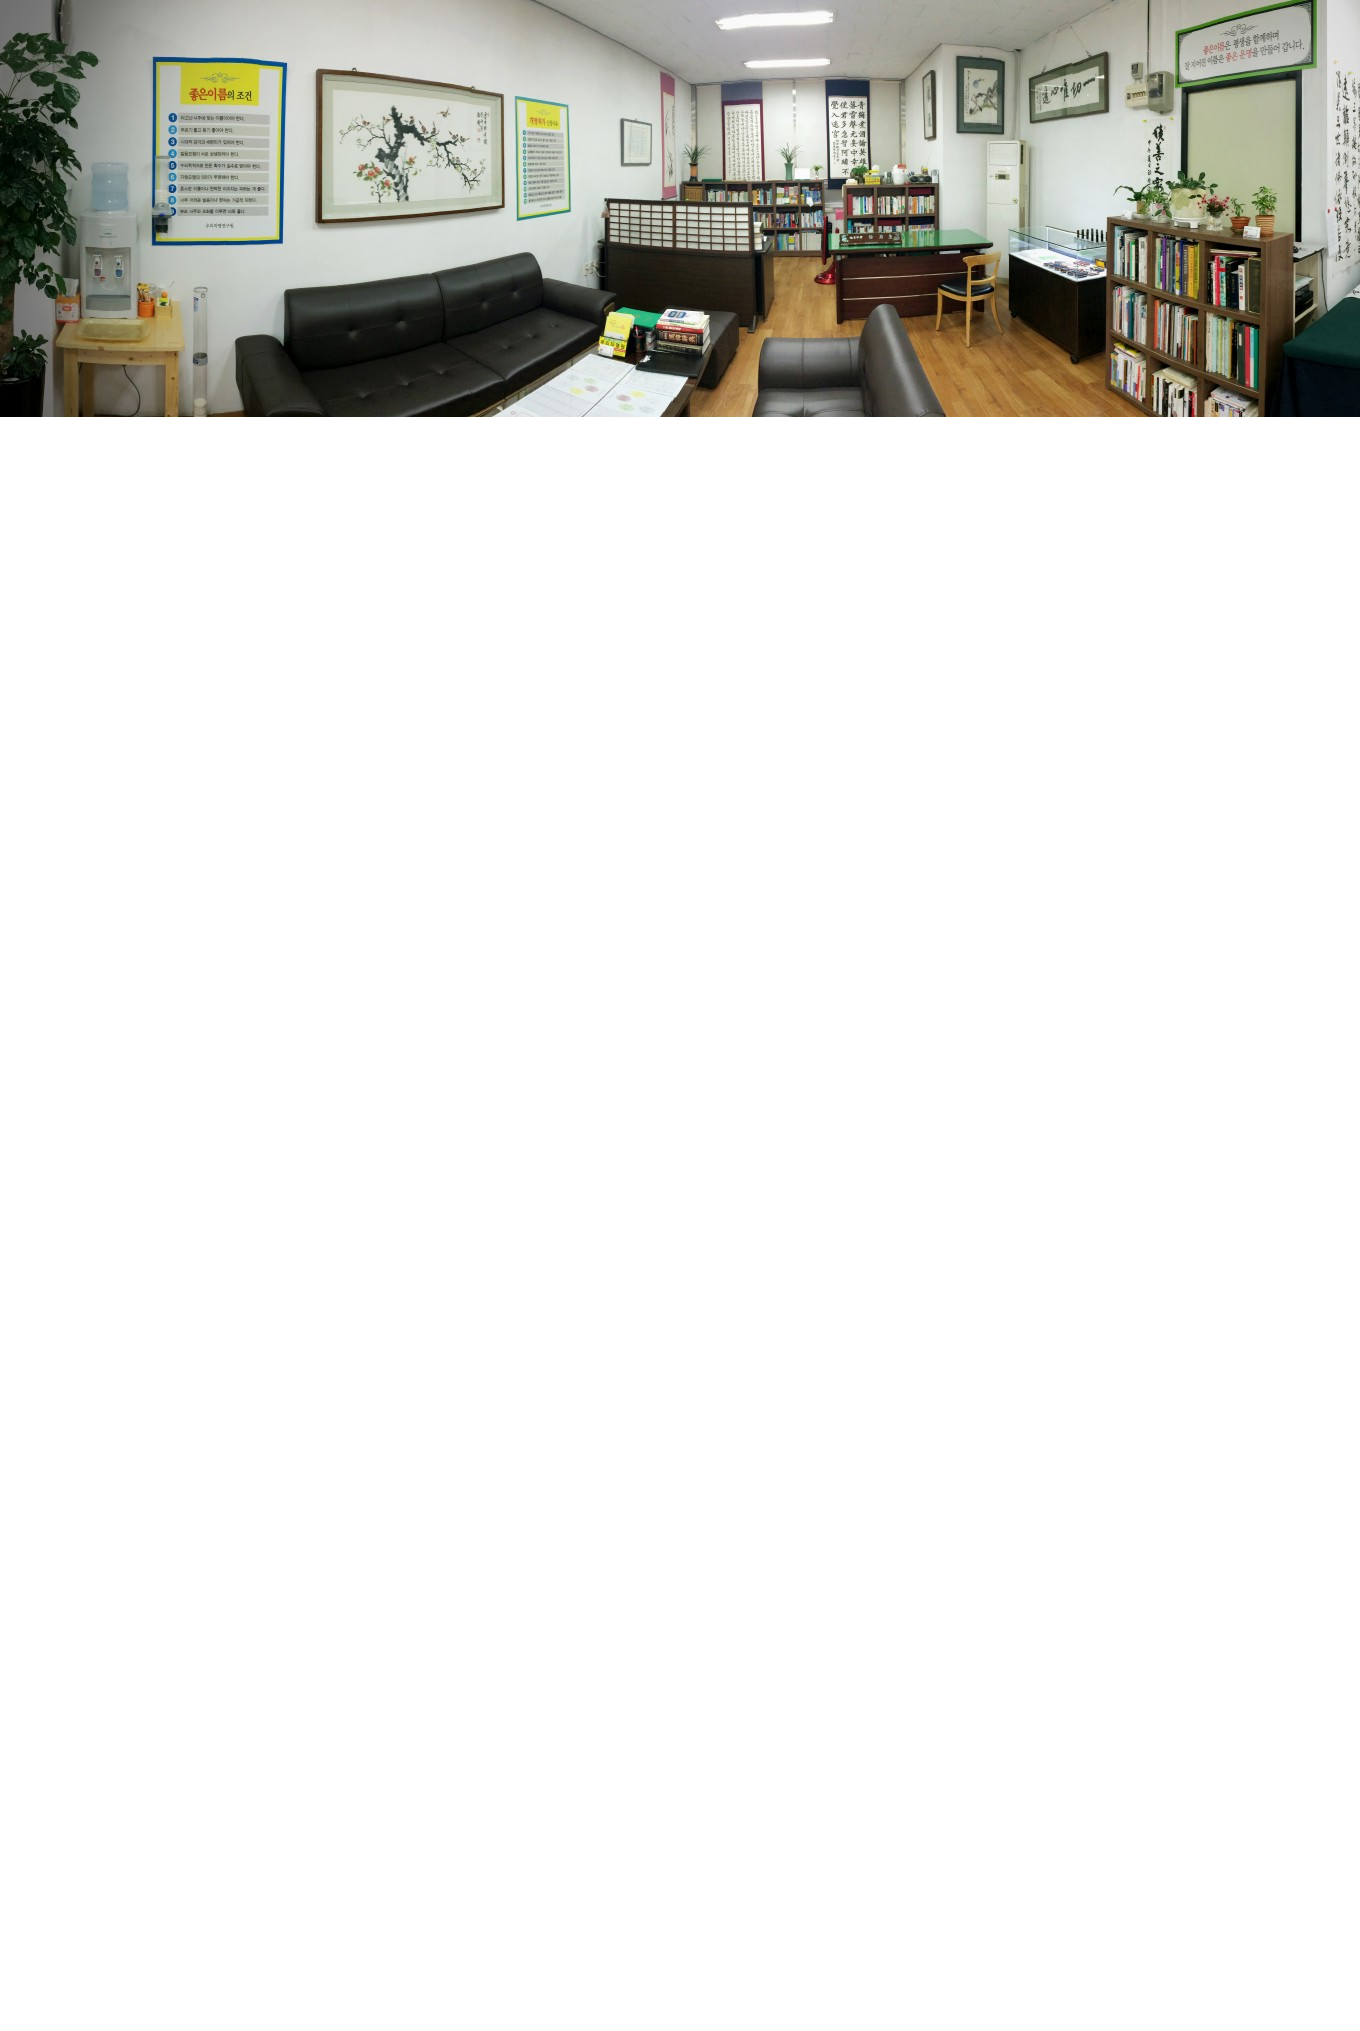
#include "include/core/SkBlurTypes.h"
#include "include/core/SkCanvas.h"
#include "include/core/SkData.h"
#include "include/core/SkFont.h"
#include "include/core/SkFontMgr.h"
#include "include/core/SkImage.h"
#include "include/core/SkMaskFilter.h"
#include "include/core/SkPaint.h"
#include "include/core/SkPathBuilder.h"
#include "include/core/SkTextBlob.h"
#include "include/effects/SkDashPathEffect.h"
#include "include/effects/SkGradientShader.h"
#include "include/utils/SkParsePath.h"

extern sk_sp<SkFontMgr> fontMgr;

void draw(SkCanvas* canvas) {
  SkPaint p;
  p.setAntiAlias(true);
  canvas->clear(SK_ColorWHITE);
  canvas->drawImageRect(SkImages::DeferredFromEncodedData(SkData::MakeFromFileName("images/1.png")), SkRect::MakeLTRB(0, 0, 1360, 417), SkSamplingOptions());
}
